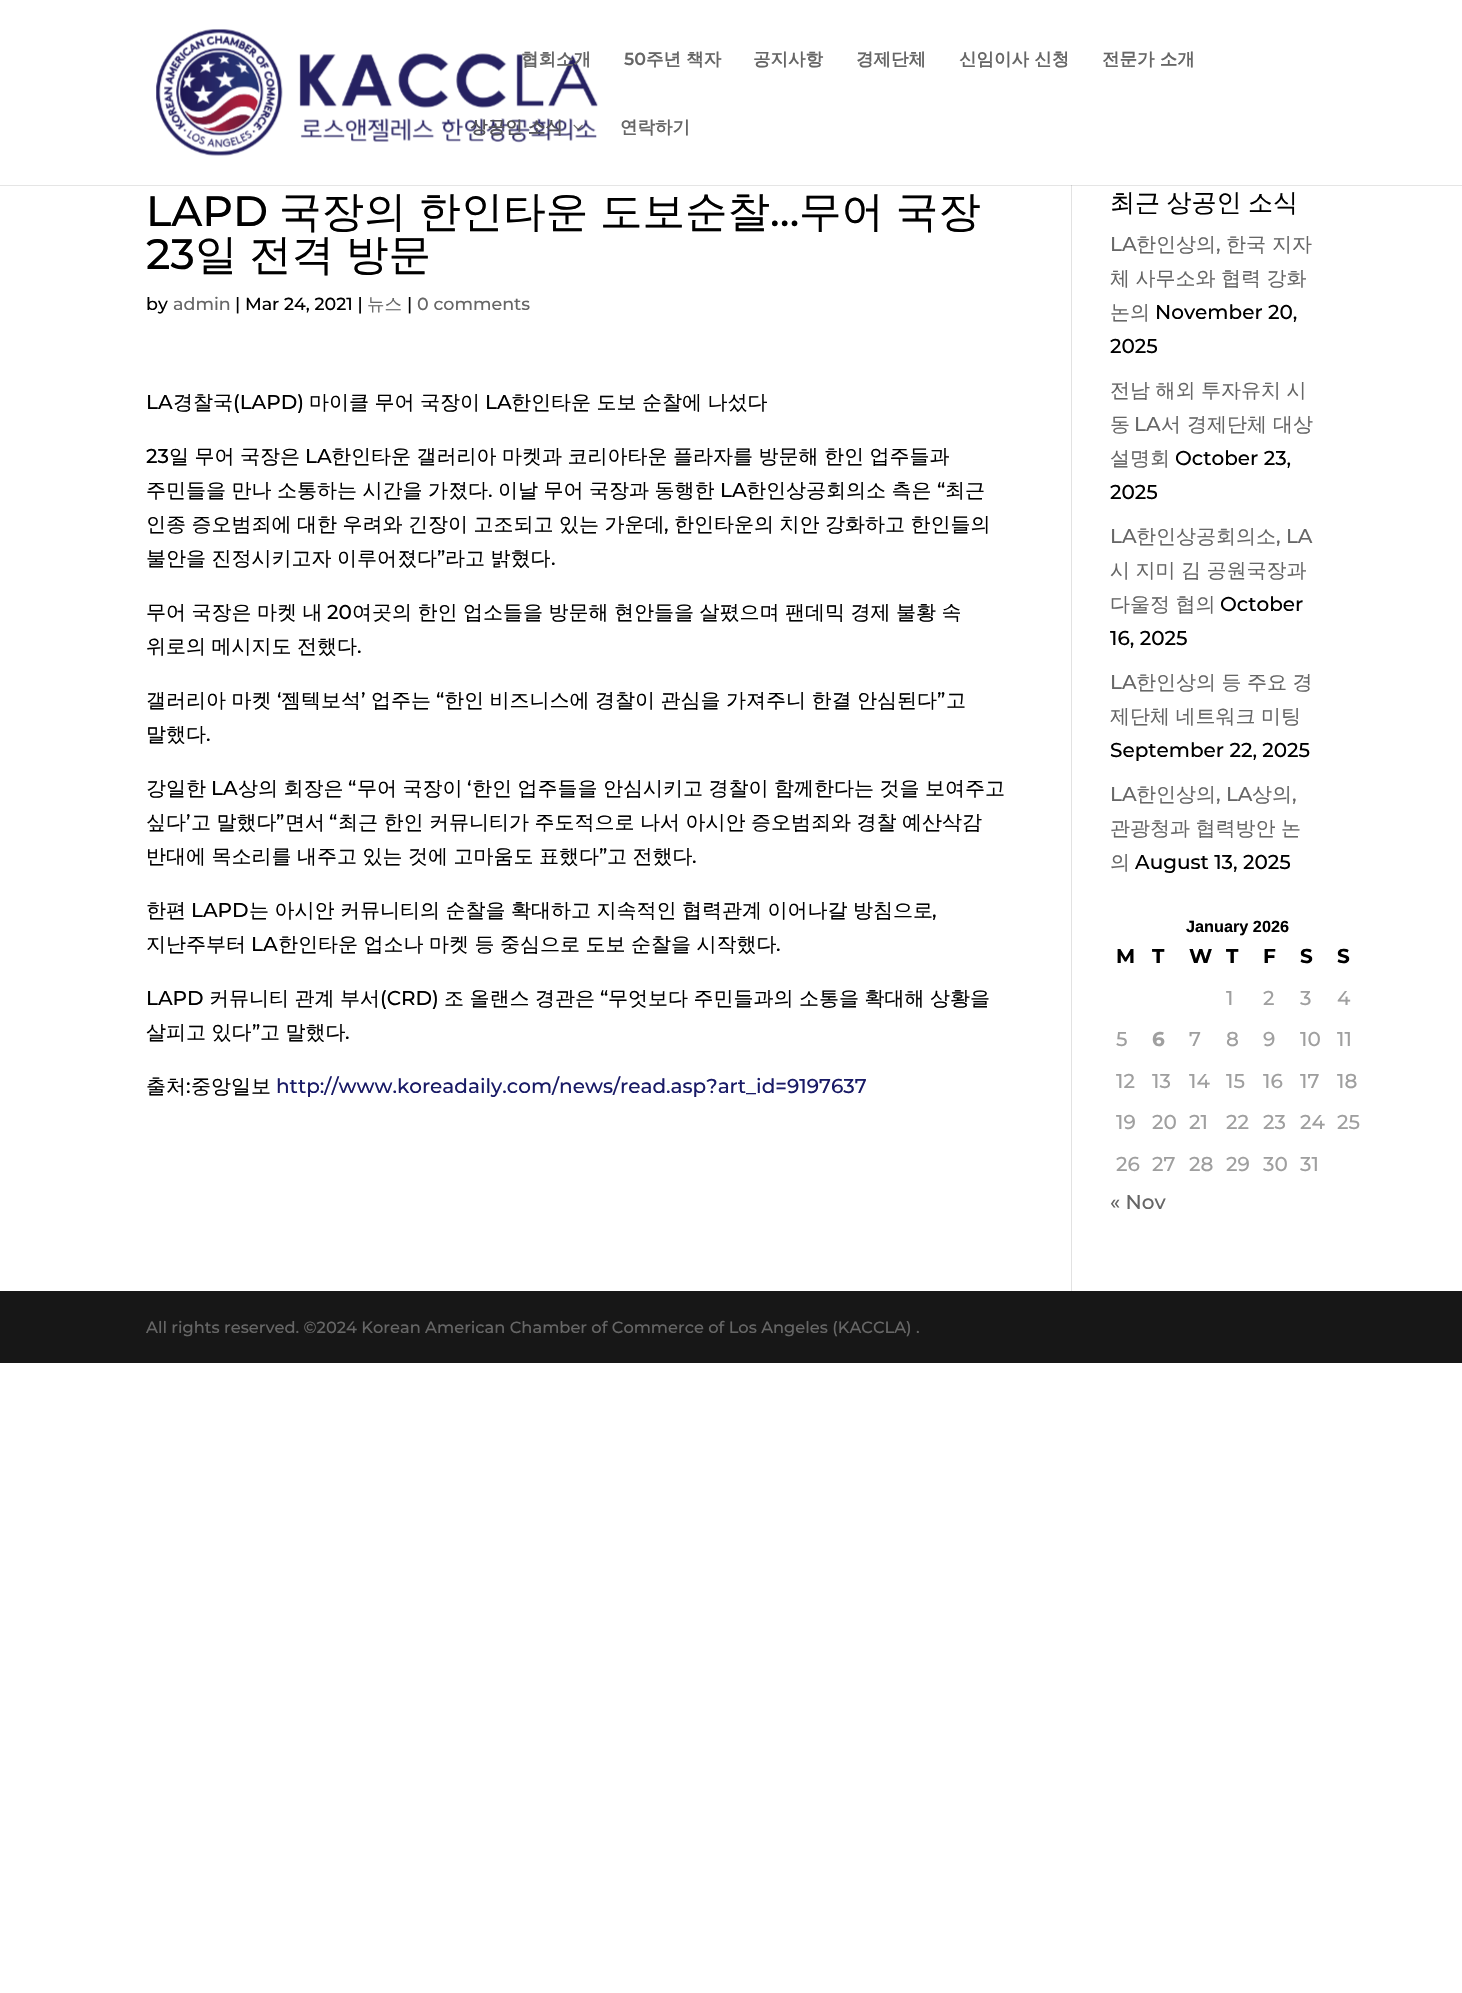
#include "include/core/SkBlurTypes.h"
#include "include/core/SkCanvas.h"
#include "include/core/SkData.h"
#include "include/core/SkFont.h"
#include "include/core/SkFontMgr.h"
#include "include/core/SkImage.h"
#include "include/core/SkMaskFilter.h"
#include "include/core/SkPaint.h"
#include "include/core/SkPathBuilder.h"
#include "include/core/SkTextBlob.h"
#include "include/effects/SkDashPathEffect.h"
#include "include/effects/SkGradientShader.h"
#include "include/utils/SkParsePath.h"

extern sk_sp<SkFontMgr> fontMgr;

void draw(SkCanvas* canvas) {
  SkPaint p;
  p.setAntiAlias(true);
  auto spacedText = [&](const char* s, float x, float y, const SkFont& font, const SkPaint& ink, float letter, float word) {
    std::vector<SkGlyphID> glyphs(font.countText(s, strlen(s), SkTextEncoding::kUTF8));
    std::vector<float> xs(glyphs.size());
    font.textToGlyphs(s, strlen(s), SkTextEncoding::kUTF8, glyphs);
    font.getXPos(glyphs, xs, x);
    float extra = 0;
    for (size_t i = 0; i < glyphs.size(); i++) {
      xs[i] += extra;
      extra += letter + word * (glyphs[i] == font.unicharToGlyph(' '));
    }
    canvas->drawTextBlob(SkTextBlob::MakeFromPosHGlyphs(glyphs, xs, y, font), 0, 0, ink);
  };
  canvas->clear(SK_ColorWHITE);
  p.setColor(SkColorSetRGB(226, 226, 226));
  canvas->drawRect(SkRect::MakeLTRB(1071, 185, 1072, 1291), p);
  p.setColor(SkColorSetARGB(26, 0, 0, 0));
  canvas->drawPath(SkPathBuilder().moveTo(0, 185).lineTo(0, 186).lineTo(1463, 186).lineTo(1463, 1).lineTo(1462, 1).lineTo(1462, 185).close().detach(), p);
  canvas->drawImageRect(SkImages::DeferredFromEncodedData(SkData::MakeFromFileName("images/1.png")), SkRect::MakeLTRB(156, 29, 598, 156), SkSamplingOptions());
  canvas->drawImageRect(SkImages::DeferredFromEncodedData(SkData::MakeFromFileName("images/2.png")), SkRect::MakeLTRB(573, 124, 583, 130), SkSamplingOptions());
  p.setColor(SkColorSetRGB(23, 23, 23));
  canvas->drawRect(SkRect::MakeLTRB(0, 1291, 1462, 1363), p);
  SkFont font1(fontMgr->matchFamilyStyle("WenQuanYi Zen Hei", SkFontStyle::Bold()), 17.5f);
  font1.setSubpixel(true);
  p.setColor(SkColorSetRGB(102, 102, 102));
  canvas->drawString("협회소개", 521, 65, font1, p);
  SkFont font2(fontMgr->matchFamilyStyle("Montserrat", SkFontStyle(600, SkFontStyle::kNormal_Width, SkFontStyle::kUpright_Slant)), 17.5f);
  font2.setSubpixel(true);
  canvas->drawString("50", 624, 65, font2, p);
  canvas->drawString("주년 책자", 646, 65, font1, p);
  canvas->drawString("공지사항", 753, 65, font1, p);
  canvas->drawString("경제단체", 856, 65, font1, p);
  canvas->drawString("신임이사 신청", 959, 65, font1, p);
  canvas->drawString("전문가 소개", 1102, 65, font1, p);
  p.setColor(SkColorSetRGB(83, 83, 88));
  canvas->drawString("상공인 소식", 470, 133, font1, p);
  p.setColor(SkColorSetRGB(102, 102, 102));
  canvas->drawString("연락하기", 620, 133, font1, p);
  SkFont font3(fontMgr->matchFamilyStyle("Montserrat", SkFontStyle(500, SkFontStyle::kNormal_Width, SkFontStyle::kUpright_Slant)), 42.5f);
  font3.setSubpixel(true);
  p.setColor(SK_ColorBLACK);
  canvas->drawString("LAPD", 146, 226, font3, p);
  SkFont font4(fontMgr->matchFamilyStyle("WenQuanYi Zen Hei", SkFontStyle(500, SkFontStyle::kNormal_Width, SkFontStyle::kUpright_Slant)), 42.5f);
  font4.setSubpixel(true);
  spacedText("국장의 한인타운 도보순찰", 279, 226, font4, p, 0, -1);
  canvas->drawString("…", 770, 226, font3, p);
  spacedText("무어 국장", 799, 226, font4, p, 0, -1);
  canvas->drawString("23", 146, 269, font3, p);
  spacedText("일 전격 방문", 195, 269, font4, p, 0, -1);
  SkFont font5(fontMgr->matchFamilyStyle("Montserrat", SkFontStyle(500, SkFontStyle::kNormal_Width, SkFontStyle::kUpright_Slant)), 17.5f);
  font5.setSubpixel(true);
  canvas->drawString("by", 146, 310, font5, p);
  p.setColor(SkColorSetRGB(102, 102, 102));
  canvas->drawString("admin", 173, 310, font5, p);
  p.setColor(SK_ColorBLACK);
  canvas->drawString("| Mar 24, 2021 |", 235, 310, font5, p);
  SkFont font6(fontMgr->matchFamilyStyle("WenQuanYi Zen Hei", SkFontStyle(500, SkFontStyle::kNormal_Width, SkFontStyle::kUpright_Slant)), 17.5f);
  font6.setSubpixel(true);
  p.setColor(SkColorSetRGB(102, 102, 102));
  canvas->drawString("뉴스", 367, 310, font6, p);
  p.setColor(SK_ColorBLACK);
  canvas->drawString("|", 407, 310, font5, p);
  p.setColor(SkColorSetRGB(102, 102, 102));
  canvas->drawString("0 comments", 417, 310, font5, p);
  SkFont font7(fontMgr->matchFamilyStyle("Montserrat", SkFontStyle(500, SkFontStyle::kNormal_Width, SkFontStyle::kUpright_Slant)), 20);
  font7.setSubpixel(true);
  p.setColor(SK_ColorBLACK);
  canvas->drawString("LA", 146, 409, font7, p);
  SkFont font8(fontMgr->matchFamilyStyle("WenQuanYi Zen Hei", SkFontStyle(500, SkFontStyle::kNormal_Width, SkFontStyle::kUpright_Slant)), 20);
  font8.setSubpixel(true);
  canvas->drawString("경찰국", 173, 409, font8, p);
  canvas->drawString("(LAPD)", 233, 409, font7, p);
  spacedText("마이클 무어 국장이", 309, 409, font8, p, 0, -0.5f);
  canvas->drawString("LA", 485, 409, font7, p);
  spacedText("한인타운 도보 순찰에 나섰다", 511, 409, font8, p, 0, -0.5f);
  canvas->drawString("23", 146, 463, font7, p);
  spacedText("일 무어 국장은", 169, 463, font8, p, 0, -0.5f);
  canvas->drawString("LA", 305, 463, font7, p);
  spacedText("한인타운 갤러리아 마켓과 코리아타운 플라자를 방문해 한인 업주들과", 331, 463, font8, p, 0, -0.5f);
  spacedText("주민들을 만나 소통하는 시간을 가졌다", 146, 497, font8, p, 0, -0.5f);
  canvas->drawString(".", 488, 497, font7, p);
  spacedText("이날 무어 국장과 동행한", 498, 497, font8, p, 0, -0.5f);
  canvas->drawString("LA", 720, 497, font7, p);
  spacedText("한인상공회의소 측은", 746, 497, font8, p, 0, -0.5f);
  canvas->drawString("“", 937, 497, font7, p);
  canvas->drawString("최근", 945, 497, font8, p);
  spacedText("인종 증오범죄에 대한 우려와 긴장이 고조되고 있는 가운데", 146, 531, font8, p, 0, -0.5f);
  canvas->drawString(",", 664, 531, font7, p);
  spacedText("한인타운의 치안 강화하고 한인들의", 674, 531, font8, p, 0, -0.5f);
  spacedText("불안을 진정시키고자 이루어졌다", 146, 565, font8, p, 0, -0.5f);
  canvas->drawString("”", 437, 565, font7, p);
  spacedText("라고 밝혔다", 445, 565, font8, p, 0, -0.5f);
  canvas->drawString(".", 551, 565, font7, p);
  spacedText("무어 국장은 마켓 내", 146, 619, font8, p, 0, -0.5f);
  canvas->drawString("20", 327, 619, font7, p);
  spacedText("여곳의 한인 업소들을 방문해 현안들을 살폈으며 팬데믹 경제 불황 속", 352, 619, font8, p, 0, -0.5f);
  spacedText("위로의 메시지도 전했다", 146, 653, font8, p, 0, -0.5f);
  canvas->drawString(".", 357, 653, font7, p);
  spacedText("갤러리아 마켓", 146, 707, font8, p, 0, -0.5f);
  canvas->drawString("‘", 277, 707, font7, p);
  canvas->drawString("젬텍보석", 281, 707, font8, p);
  canvas->drawString("’", 361, 707, font7, p);
  canvas->drawString("업주는", 371, 707, font8, p);
  canvas->drawString("“", 436, 707, font7, p);
  spacedText("한인 비즈니스에 경찰이 관심을 가져주니 한결 안심된다", 444, 707, font8, p, 0, -0.5f);
  canvas->drawString("”", 937, 707, font7, p);
  canvas->drawString("고", 946, 707, font8, p);
  canvas->drawString("말했다", 146, 741, font8, p);
  canvas->drawString(".", 206, 741, font7, p);
  canvas->drawString("강일한", 146, 795, font8, p);
  canvas->drawString("LA", 211, 795, font7, p);
  spacedText("상의 회장은", 238, 795, font8, p, 0, -0.5f);
  canvas->drawString("“", 348, 795, font7, p);
  spacedText("무어 국장이", 357, 795, font8, p, 0, -0.5f);
  canvas->drawString("‘", 467, 795, font7, p);
  spacedText("한인 업주들을 안심시키고 경찰이 함께한다는 것을 보여주고", 472, 795, font8, p, 0, -0.5f);
  canvas->drawString("싶다", 146, 829, font8, p);
  canvas->drawString("’", 186, 829, font7, p);
  spacedText("고 말했다", 191, 829, font8, p, 0, -0.5f);
  canvas->drawString("”", 276, 829, font7, p);
  canvas->drawString("면서", 285, 829, font8, p);
  canvas->drawString("“", 329, 829, font7, p);
  spacedText("최근 한인 커뮤니티가 주도적으로 나서 아시안 증오범죄와 경찰 예산삭감", 338, 829, font8, p, 0, -0.5f);
  spacedText("반대에 목소리를 내주고 있는 것에 고마움도 표했다", 146, 863, font8, p, 0, -0.5f);
  canvas->drawString("”", 599, 863, font7, p);
  spacedText("고 전했다", 607, 863, font8, p, 0, -0.5f);
  canvas->drawString(".", 692, 863, font7, p);
  canvas->drawString("한편", 146, 917, font8, p);
  canvas->drawString("LAPD", 191, 917, font7, p);
  spacedText("는 아시안 커뮤니티의 순찰을 확대하고 지속적인 협력관계 이어나갈 방침으로", 249, 917, font8, p, 0, -0.5f);
  canvas->drawString(",", 932, 917, font7, p);
  canvas->drawString("지난주부터", 146, 951, font8, p);
  canvas->drawString("LA", 251, 951, font7, p);
  spacedText("한인타운 업소나 마켓 등 중심으로 도보 순찰을 시작했다", 278, 951, font8, p, 0, -0.5f);
  canvas->drawString(".", 776, 951, font7, p);
  canvas->drawString("LAPD", 146, 1005, font7, p);
  spacedText("커뮤니티 관계 부서", 209, 1005, font8, p, 0, -0.5f);
  canvas->drawString("(CRD)", 380, 1005, font7, p);
  spacedText("조 올랜스 경관은", 444, 1005, font8, p, 0, -0.5f);
  canvas->drawString("“", 600, 1005, font7, p);
  spacedText("무엇보다 주민들과의 소통을 확대해 상황을", 608, 1005, font8, p, 0, -0.5f);
  spacedText("살피고 있다", 146, 1039, font8, p, 0, -0.5f);
  canvas->drawString("”", 252, 1039, font7, p);
  spacedText("고 말했다", 260, 1039, font8, p, 0, -0.5f);
  canvas->drawString(".", 345, 1039, font7, p);
  canvas->drawString("출처", 146, 1093, font8, p);
  canvas->drawString(":", 186, 1093, font7, p);
  canvas->drawString("중앙일보", 191, 1093, font8, p);
  p.setColor(SkColorSetRGB(25, 26, 102));
  canvas->drawString("http://www.koreadaily.com/news/read.asp?art_id=9197637", 276, 1093, font7, p);
  SkFont font9(fontMgr->matchFamilyStyle("WenQuanYi Zen Hei", SkFontStyle(500, SkFontStyle::kNormal_Width, SkFontStyle::kUpright_Slant)), 25);
  font9.setSubpixel(true);
  p.setColor(SK_ColorBLACK);
  spacedText("최근 상공인 소식", 1110, 211, font9, p, 0, -1);
  p.setColor(SkColorSetRGB(102, 102, 102));
  canvas->drawString("LA", 1110, 251, font7, p);
  canvas->drawString("한인상의", 1136, 251, font8, p);
  canvas->drawString(",", 1216, 251, font7, p);
  canvas->drawString("한국 지자", 1226, 251, font8, p);
  spacedText("체 사무소와 협력 강화", 1110, 285, font8, p, 0, -0.5f);
  canvas->drawString("논의", 1110, 319, font8, p);
  p.setColor(SK_ColorBLACK);
  canvas->drawString("November 20,", 1155, 319, font7, p);
  canvas->drawString("2025", 1110, 353, font7, p);
  p.setColor(SkColorSetRGB(102, 102, 102));
  spacedText("전남 해외 투자유치 시", 1110, 397, font8, p, 0, -0.5f);
  canvas->drawString("동", 1110, 431, font8, p);
  canvas->drawString("LA", 1134, 431, font7, p);
  canvas->drawString("서 경제단체 대상", 1161, 431, font8, p);
  canvas->drawString("설명회", 1110, 465, font8, p);
  p.setColor(SK_ColorBLACK);
  canvas->drawString("October 23,", 1175, 465, font7, p);
  canvas->drawString("2025", 1110, 499, font7, p);
  p.setColor(SkColorSetRGB(102, 102, 102));
  canvas->drawString("LA", 1110, 543, font7, p);
  canvas->drawString("한인상공회의소", 1136, 543, font8, p);
  canvas->drawString(", LA", 1276, 543, font7, p);
  spacedText("시 지미 김 공원국장과", 1110, 577, font8, p, 0, -0.5f);
  spacedText("다울정 협의", 1110, 611, font8, p, 0, -0.5f);
  p.setColor(SK_ColorBLACK);
  canvas->drawString("October", 1220, 611, font7, p);
  canvas->drawString("16, 2025", 1110, 645, font7, p);
  p.setColor(SkColorSetRGB(102, 102, 102));
  canvas->drawString("LA", 1110, 689, font7, p);
  spacedText("한인상의 등 주요 경", 1136, 689, font8, p, 0, -0.5f);
  spacedText("제단체 네트워크 미팅", 1110, 723, font8, p, 0, -0.5f);
  p.setColor(SK_ColorBLACK);
  canvas->drawString("September 22, 2025", 1110, 757, font7, p);
  p.setColor(SkColorSetRGB(102, 102, 102));
  canvas->drawString("LA", 1110, 801, font7, p);
  canvas->drawString("한인상의", 1136, 801, font8, p);
  canvas->drawString(", LA", 1216, 801, font7, p);
  canvas->drawString("상의", 1252, 801, font8, p);
  canvas->drawString(",", 1292, 801, font7, p);
  spacedText("관광청과 협력방안 논", 1110, 835, font8, p, 0, -0.5f);
  canvas->drawString("의", 1110, 869, font8, p);
  p.setColor(SK_ColorBLACK);
  canvas->drawString("August 13, 2025", 1135, 869, font7, p);
  SkFont font10(fontMgr->matchFamilyStyle("Liberation Sans", SkFontStyle::Bold()), 16.25f);
  font10.setSubpixel(true);
  canvas->drawString("January 2026", 1186, 932, font10, p);
  SkFont font11(fontMgr->matchFamilyStyle("Montserrat", SkFontStyle::Bold()), 20);
  font11.setSubpixel(true);
  canvas->drawString("M", 1116, 963, font11, p);
  canvas->drawString("T", 1152, 963, font11, p);
  canvas->drawString("W", 1189, 963, font11, p);
  canvas->drawString("T", 1226, 963, font11, p);
  canvas->drawString("F", 1263, 963, font11, p);
  canvas->drawString("S", 1300, 963, font11, p);
  canvas->drawString("S", 1337, 963, font11, p);
  p.setColor(SkColorSetRGB(159, 159, 159));
  canvas->drawString("1", 1226, 1005, font7, p);
  canvas->drawString("2", 1263, 1005, font7, p);
  canvas->drawString("3", 1300, 1005, font7, p);
  canvas->drawString("4", 1337, 1005, font7, p);
  canvas->drawString("5", 1116, 1046, font7, p);
  canvas->drawString("6", 1152, 1046, font11, p);
  canvas->drawString("7", 1189, 1046, font7, p);
  canvas->drawString("8", 1226, 1046, font7, p);
  canvas->drawString("9", 1263, 1046, font7, p);
  canvas->drawString("10", 1300, 1046, font7, p);
  canvas->drawString("11", 1337, 1046, font7, p);
  canvas->drawString("12", 1116, 1088, font7, p);
  canvas->drawString("13", 1152, 1088, font7, p);
  canvas->drawString("14", 1189, 1088, font7, p);
  canvas->drawString("15", 1226, 1088, font7, p);
  canvas->drawString("16", 1263, 1088, font7, p);
  canvas->drawString("17", 1300, 1088, font7, p);
  canvas->drawString("18", 1337, 1088, font7, p);
  canvas->drawString("19", 1116, 1129, font7, p);
  canvas->drawString("20", 1152, 1129, font7, p);
  canvas->drawString("21", 1189, 1129, font7, p);
  canvas->drawString("22", 1226, 1129, font7, p);
  canvas->drawString("23", 1263, 1129, font7, p);
  canvas->drawString("24", 1300, 1129, font7, p);
  canvas->drawString("25", 1337, 1129, font7, p);
  canvas->drawString("26", 1116, 1171, font7, p);
  canvas->drawString("27", 1152, 1171, font7, p);
  canvas->drawString("28", 1189, 1171, font7, p);
  canvas->drawString("29", 1226, 1171, font7, p);
  canvas->drawString("30", 1263, 1171, font7, p);
  canvas->drawString("31", 1300, 1171, font7, p);
  p.setColor(SkColorSetRGB(102, 102, 102));
  canvas->drawString("« Nov", 1110, 1209, font7, p);
  SkFont font12(fontMgr->matchFamilyStyle("Montserrat", SkFontStyle(500, SkFontStyle::kNormal_Width, SkFontStyle::kUpright_Slant)), 16.25f);
  font12.setSubpixel(true);
  canvas->drawString("All rights reserved. ©2024 Korean American Chamber of Commerce of Los Angeles (KACCLA) .", 146, 1333, font12, p);
}
